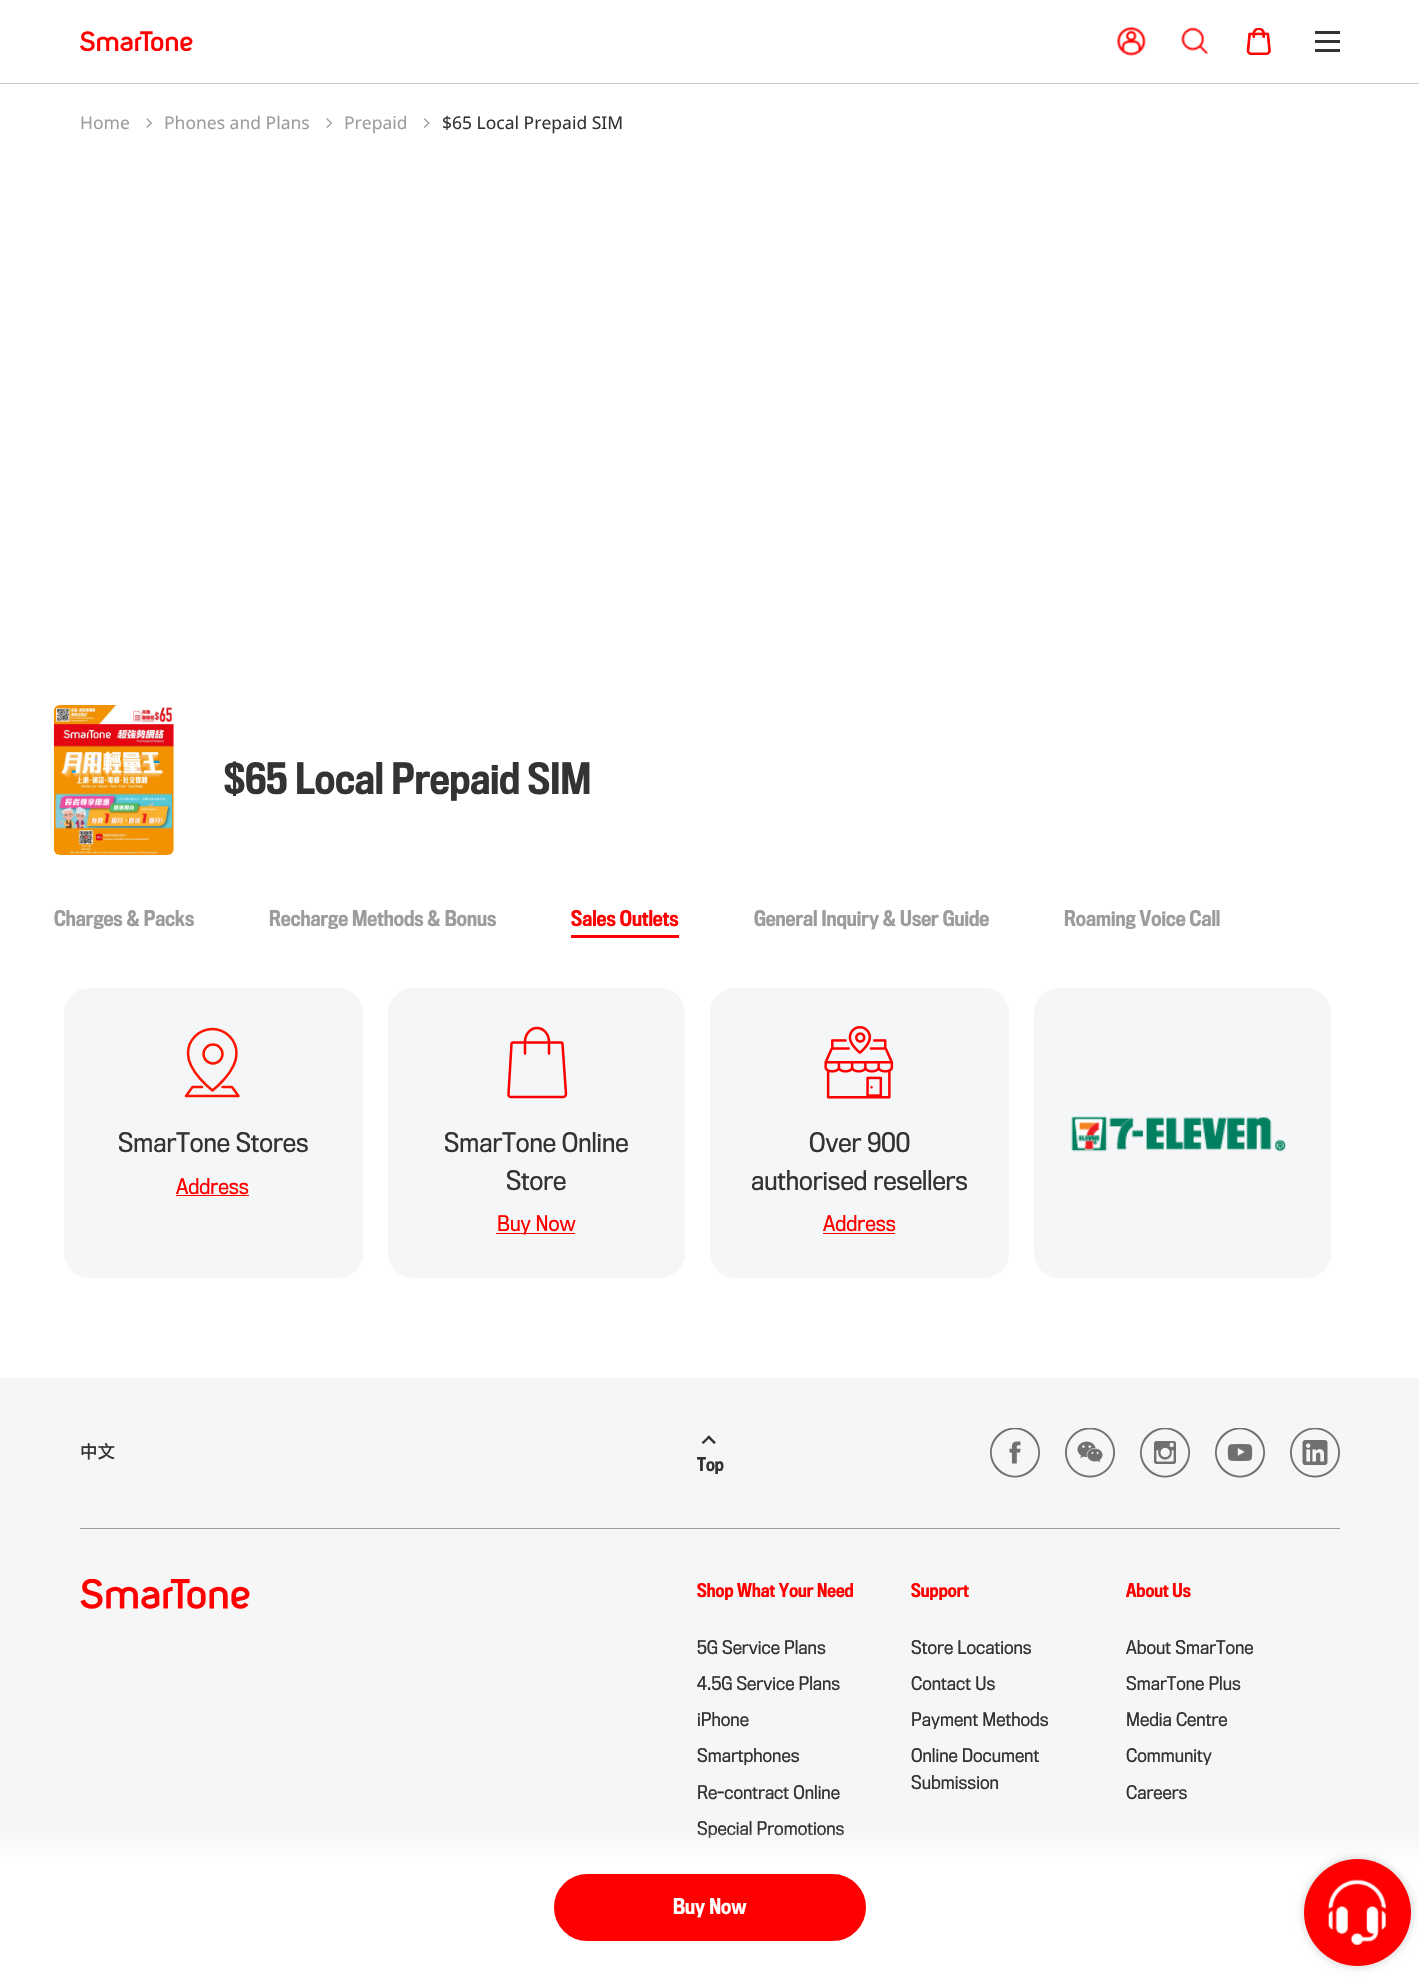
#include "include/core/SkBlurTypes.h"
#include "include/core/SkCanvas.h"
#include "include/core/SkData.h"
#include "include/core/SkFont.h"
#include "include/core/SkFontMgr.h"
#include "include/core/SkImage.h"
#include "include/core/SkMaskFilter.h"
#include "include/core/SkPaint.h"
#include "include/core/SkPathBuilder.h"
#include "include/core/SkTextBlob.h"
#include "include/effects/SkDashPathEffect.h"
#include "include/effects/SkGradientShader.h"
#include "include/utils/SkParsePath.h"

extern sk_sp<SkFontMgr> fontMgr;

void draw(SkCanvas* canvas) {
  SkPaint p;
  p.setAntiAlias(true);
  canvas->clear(SK_ColorWHITE);
  canvas->drawImageRect(SkImages::DeferredFromEncodedData(SkData::MakeFromFileName("images/1.png")), SkRect::MakeLTRB(80, 31, 193, 51), SkSamplingOptions());
  canvas->drawImageRect(SkImages::DeferredFromEncodedData(SkData::MakeFromFileName("images/2.png")), SkRect::MakeLTRB(1117, 27, 1146, 56), SkSamplingOptions());
  canvas->drawImageRect(SkImages::DeferredFromEncodedData(SkData::MakeFromFileName("images/3.png")), SkRect::MakeLTRB(1181, 27, 1208, 55), SkSamplingOptions());
  canvas->drawImageRect(SkImages::DeferredFromEncodedData(SkData::MakeFromFileName("images/4.png")), SkRect::MakeLTRB(1246, 28, 1271, 55), SkSamplingOptions());
  p.setColor(SkColorSetRGB(51, 51, 51));
  canvas->drawRect(SkRect::MakeLTRB(1315, 31, 1340, 34), p);
  canvas->drawRect(SkRect::MakeLTRB(1315, 40, 1340, 43), p);
  canvas->drawRect(SkRect::MakeLTRB(1315, 49, 1340, 52), p);
  p.setColor(SkColorSetRGB(204, 204, 204));
  canvas->drawRect(SkRect::MakeLTRB(0, 83, 1419, 84), p);
  canvas->drawImageRect(SkImages::DeferredFromEncodedData(SkData::MakeFromFileName("images/5.png")), SkRect::MakeLTRB(146, 118, 152, 128), SkSamplingOptions());
  canvas->drawImageRect(SkImages::DeferredFromEncodedData(SkData::MakeFromFileName("images/5.png")), SkRect::MakeLTRB(326, 118, 332, 128), SkSamplingOptions());
  canvas->drawImageRect(SkImages::DeferredFromEncodedData(SkData::MakeFromFileName("images/6.png")), SkRect::MakeLTRB(424, 118, 430, 128), SkSamplingOptions());
  canvas->drawImageRect(SkImages::DeferredFromEncodedData(SkData::MakeFromFileName("images/7.png")), SkRect::MakeLTRB(53, 705, 174, 855), SkSamplingOptions());
  p.setColor(SkColorSetRGB(255, 0, 0));
  canvas->drawRect(SkRect::MakeLTRB(571, 935, 679, 938), p);
  canvas->drawRoundRect(SkRect::MakeLTRB(555.5f, 1875.5f, 864.5f, 1939.5f), 32, 32, p);
  p.setStyle(SkPaint::kStroke_Style);
  p.setStrokeWidth(3);
  canvas->drawRoundRect(SkRect::MakeLTRB(555.5f, 1875.5f, 864.5f, 1939.5f), 32, 32, p);
  p.setStyle(SkPaint::kFill_Style);
  p.setColor(SkColorSetRGB(245, 246, 247));
  canvas->drawRoundRect(SkRect::MakeLTRB(64, 988, 363, 1278), 25, 25, p);
  p.setStyle(SkPaint::kStroke_Style);
  p.setStrokeWidth(2.5f);
  p.setColor(SkColorSetRGB(253, 21, 0));
  canvas->drawCircle(213, 1054, 9.5f, p);
  p.setStrokeCap(SkPaint::kRound_Cap);
  p.setStrokeJoin(SkPaint::kRound_Join);
  canvas->drawPath(SkPathBuilder().moveTo(212.5f, 1029).cubicTo(199, 1029, 188, 1040, 188, 1053.5f).cubicTo(188, 1072, 212.5f, 1090.5f, 212.5f, 1090.5f).cubicTo(212.5f, 1090.5f, 236.5f, 1072, 236.5f, 1053.5f).cubicTo(236.5f, 1040, 225.5f, 1029, 212.5f, 1029).close().detach(), p);
  canvas->drawPath(SkPathBuilder().moveTo(222.5f, 1087).lineTo(232, 1087).lineTo(238.5f, 1096).lineTo(186, 1096).lineTo(192.5f, 1087).lineTo(202, 1087).detach(), p);
  p.setStyle(SkPaint::kFill_Style);
  p.setColor(SkColorSetRGB(255, 0, 0));
  canvas->drawRect(SkRect::MakeLTRB(176, 1195, 249, 1196), p);
  p.setColor(SkColorSetRGB(245, 246, 247));
  canvas->drawRoundRect(SkRect::MakeLTRB(388, 988, 685, 1278), 25, 25, p);
  p.setStyle(SkPaint::kStroke_Style);
  p.setStrokeCap(SkPaint::kButt_Cap);
  p.setColor(SkColorSetRGB(255, 0, 0));
  canvas->drawPath(SkPathBuilder().moveTo(511.5f, 1044).cubicTo(511.5f, 1043, 512.5f, 1042.5f, 513, 1042.5f).lineTo(561, 1042.5f).cubicTo(562, 1042.5f, 562.5f, 1043, 562.5f, 1044).lineTo(566, 1094).cubicTo(566, 1095.5f, 565, 1097, 563.5f, 1097).lineTo(511, 1097).cubicTo(509.5f, 1097, 508, 1095.5f, 508.5f, 1094).close().detach(), p);
  p.setStrokeCap(SkPaint::kRound_Cap);
  canvas->drawPath(SkPathBuilder().moveTo(525, 1053.5f).lineTo(525, 1042).cubicTo(525, 1034, 530.5f, 1028, 537, 1028).cubicTo(543.5f, 1028, 549, 1034, 549, 1042).lineTo(549, 1053.5f).detach(), p);
  p.setStyle(SkPaint::kFill_Style);
  canvas->drawRect(SkRect::MakeLTRB(496, 1233, 575, 1234), p);
  p.setColor(SkColorSetRGB(245, 246, 247));
  canvas->drawRoundRect(SkRect::MakeLTRB(710, 988, 1009, 1278), 25, 25, p);
  canvas->drawImageRect(SkImages::DeferredFromEncodedData(SkData::MakeFromFileName("images/8.png")), SkRect::MakeLTRB(824, 1026, 894, 1099), SkSamplingOptions());
  p.setColor(SkColorSetRGB(255, 0, 0));
  canvas->drawRect(SkRect::MakeLTRB(823, 1233, 895, 1234), p);
  p.setColor(SkColorSetRGB(245, 246, 247));
  canvas->drawRoundRect(SkRect::MakeLTRB(1034, 988, 1331, 1278), 25, 25, p);
  canvas->drawImageRect(SkImages::DeferredFromEncodedData(SkData::MakeFromFileName("images/9.png")), SkRect::MakeLTRB(1071, 1116, 1286, 1152), SkSamplingOptions());
  p.setColor(SkColorSetRGB(246, 246, 246));
  canvas->drawRect(SkRect::MakeLTRB(0, 1378, 1419, 1865), p);
  p.setColor(SkColorSetRGB(156, 156, 156));
  canvas->drawRect(SkRect::MakeLTRB(80, 1528, 1340, 1529), p);
  canvas->drawImageRect(SkImages::DeferredFromEncodedData(SkData::MakeFromFileName("images/10.png")), SkRect::MakeLTRB(990, 1428, 1040, 1478), SkSamplingOptions());
  canvas->drawImageRect(SkImages::DeferredFromEncodedData(SkData::MakeFromFileName("images/11.png")), SkRect::MakeLTRB(1065, 1428, 1115, 1478), SkSamplingOptions());
  canvas->drawImageRect(SkImages::DeferredFromEncodedData(SkData::MakeFromFileName("images/12.png")), SkRect::MakeLTRB(1140, 1428, 1190, 1478), SkSamplingOptions());
  canvas->drawImageRect(SkImages::DeferredFromEncodedData(SkData::MakeFromFileName("images/13.png")), SkRect::MakeLTRB(1215, 1428, 1265, 1478), SkSamplingOptions());
  canvas->drawImageRect(SkImages::DeferredFromEncodedData(SkData::MakeFromFileName("images/14.png")), SkRect::MakeLTRB(1290, 1428, 1340, 1478), SkSamplingOptions());
  p.setColor(SkColorSetRGB(51, 51, 51));
  canvas->drawPath(SkPathBuilder().moveTo(703.5f, 1444).lineTo(701.5f, 1442.5f).lineTo(709, 1435.5f).lineTo(710.5f, 1437).close().detach(), p);
  canvas->drawPath(SkPathBuilder().moveTo(714, 1444).lineTo(707, 1437).lineTo(709, 1435.5f).lineTo(716, 1442.5f).close().detach(), p);
  canvas->drawImageRect(SkImages::DeferredFromEncodedData(SkData::MakeFromFileName("images/15.png")), SkRect::MakeLTRB(80, 1579, 250, 1609), SkSamplingOptions());
  SkFont font1(fontMgr->matchFamilyStyle("Noto Sans", SkFontStyle::Normal()), 17.5f);
  font1.setSubpixel(true);
  p.setColor(SkColorSetRGB(156, 156, 156));
  canvas->drawString("Home", 80, 129, font1, p);
  canvas->drawString("Phones and Plans", 164, 129, font1, p);
  canvas->drawString("Prepaid", 344, 129, font1, p);
  p.setColor(SkColorSetRGB(51, 51, 51));
  canvas->drawString("$65 Local Prepaid SIM", 442, 129, font1, p);
  SkFont font2(fontMgr->matchFamilyStyle("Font", SkFontStyle(500, SkFontStyle::kNormal_Width, SkFontStyle::kUpright_Slant)), 40);
  font2.setSubpixel(true);
  canvas->drawString("$65 Local Prepaid SIM", 224, 794, font2, p);
  SkFont font3(fontMgr->matchFamilyStyle("Font", SkFontStyle(500, SkFontStyle::kNormal_Width, SkFontStyle::kUpright_Slant)), 20);
  font3.setSubpixel(true);
  p.setColor(SkColorSetRGB(156, 156, 156));
  canvas->drawString("Charges & Packs", 54, 926, font3, p);
  canvas->drawString("Recharge Methods & Bonus", 269, 926, font3, p);
  p.setColor(SkColorSetRGB(255, 0, 0));
  canvas->drawString("Sales Outlets", 571, 926, font3, p);
  p.setColor(SkColorSetRGB(156, 156, 156));
  canvas->drawString("General Inquiry & User Guide", 754, 926, font3, p);
  canvas->drawString("Roaming Voice Call", 1064, 926, font3, p);
  p.setColor(SK_ColorWHITE);
  canvas->drawString("Buy Now", 673, 1914, font3, p);
  SkFont font4(fontMgr->matchFamilyStyle("Font", SkFontStyle::Normal()), 25);
  font4.setSubpixel(true);
  p.setColor(SkColorSetRGB(51, 51, 51));
  canvas->drawString("SmarTone Stores", 118, 1152, font4, p);
  SkFont font5(fontMgr->matchFamilyStyle("Font", SkFontStyle::Normal()), 20);
  font5.setSubpixel(true);
  p.setColor(SkColorSetRGB(255, 0, 0));
  canvas->drawString("Address", 176, 1194, font5, p);
  p.setColor(SkColorSetRGB(51, 51, 51));
  canvas->drawString("SmarTone Online", 444, 1152, font4, p);
  canvas->drawString("Store", 506, 1190, font4, p);
  p.setColor(SkColorSetRGB(255, 0, 0));
  canvas->drawString("Buy Now", 497, 1231, font5, p);
  p.setColor(SkColorSetRGB(51, 51, 51));
  canvas->drawString("Over 900", 809, 1152, font4, p);
  canvas->drawString("authorised resellers", 751, 1190, font4, p);
  p.setColor(SkColorSetRGB(255, 0, 0));
  canvas->drawString("Address", 823, 1231, font5, p);
  SkFont font6(fontMgr->matchFamilyStyle("Noto Sans TC", SkFontStyle(500, SkFontStyle::kNormal_Width, SkFontStyle::kUpright_Slant)), 17.5f);
  font6.setSubpixel(true);
  p.setColor(SkColorSetRGB(51, 51, 51));
  canvas->drawString("中文", 80, 1458, font6, p);
  SkFont font7(fontMgr->matchFamilyStyle("Font", SkFontStyle(500, SkFontStyle::kNormal_Width, SkFontStyle::kUpright_Slant)), 17.5f);
  font7.setSubpixel(true);
  canvas->drawString("Top", 697, 1471, font7, p);
  p.setColor(SkColorSetRGB(255, 0, 0));
  canvas->drawString("Shop What Your Need", 697, 1597, font7, p);
  SkFont font8(fontMgr->matchFamilyStyle("Font", SkFontStyle::Normal()), 17.5f);
  font8.setSubpixel(true);
  p.setColor(SkColorSetRGB(51, 51, 51));
  canvas->drawString("5G Service Plans", 697, 1654, font8, p);
  canvas->drawString("4.5G Service Plans", 697, 1690, font8, p);
  canvas->drawString("iPhone", 697, 1726, font8, p);
  canvas->drawString("Smartphones", 697, 1762, font8, p);
  canvas->drawString("Re-contract Online", 697, 1799, font8, p);
  canvas->drawString("Special Promotions", 697, 1835, font8, p);
  {
    const SkColor colors[] = {SkColorSetARGB(0, 255, 255, 255), SK_ColorWHITE};
    const float stops[] = {0, 0.23f};
    const SkPoint ends[] = {{710, 1830}, {710, 1985}};
    p.setShader(SkGradientShader::MakeLinear(ends, colors, stops, 2, SkTileMode::kClamp));
    p.setAlpha(255);
  }
  canvas->drawRect(SkRect::MakeLTRB(0, 1831, 1419, 1865), p);
  p.setShader(nullptr);
  p.setColor(SkColorSetRGB(255, 0, 0));
  canvas->drawString("Support", 911, 1597, font7, p);
  p.setColor(SkColorSetRGB(51, 51, 51));
  canvas->drawString("Store Locations", 911, 1654, font8, p);
  canvas->drawString("Contact Us", 911, 1690, font8, p);
  canvas->drawString("Payment Methods", 911, 1726, font8, p);
  canvas->drawString("Online Document", 911, 1762, font8, p);
  canvas->drawString("Submission", 911, 1789, font8, p);
  p.setColor(SkColorSetRGB(255, 0, 0));
  canvas->drawString("About Us", 1126, 1597, font7, p);
  p.setColor(SkColorSetRGB(51, 51, 51));
  canvas->drawString("About SmarTone", 1126, 1654, font8, p);
  canvas->drawString("SmarTone Plus", 1126, 1690, font8, p);
  canvas->drawString("Media Centre", 1126, 1726, font8, p);
  canvas->drawString("Community", 1126, 1762, font8, p);
  canvas->drawString("Careers", 1126, 1799, font8, p);
  p.setColor(SkColorSetARGB(51, 0, 0, 0));
  p.setMaskFilter(SkMaskFilter::MakeBlur(kNormal_SkBlurStyle, 5));
  canvas->drawRoundRect(SkRect::MakeLTRB(1304, 1859, 1411, 1966), 53.5f, 53.5f, p);
  p.setMaskFilter(nullptr);
  p.setColor(SkColorSetRGB(255, 0, 0));
  canvas->drawCircle(1357.5f, 1912.5f, 53.5f, p);
  canvas->drawImageRect(SkImages::DeferredFromEncodedData(SkData::MakeFromFileName("images/16.png")), SkRect::MakeLTRB(1328, 1879, 1386, 1945), SkSamplingOptions());
}
